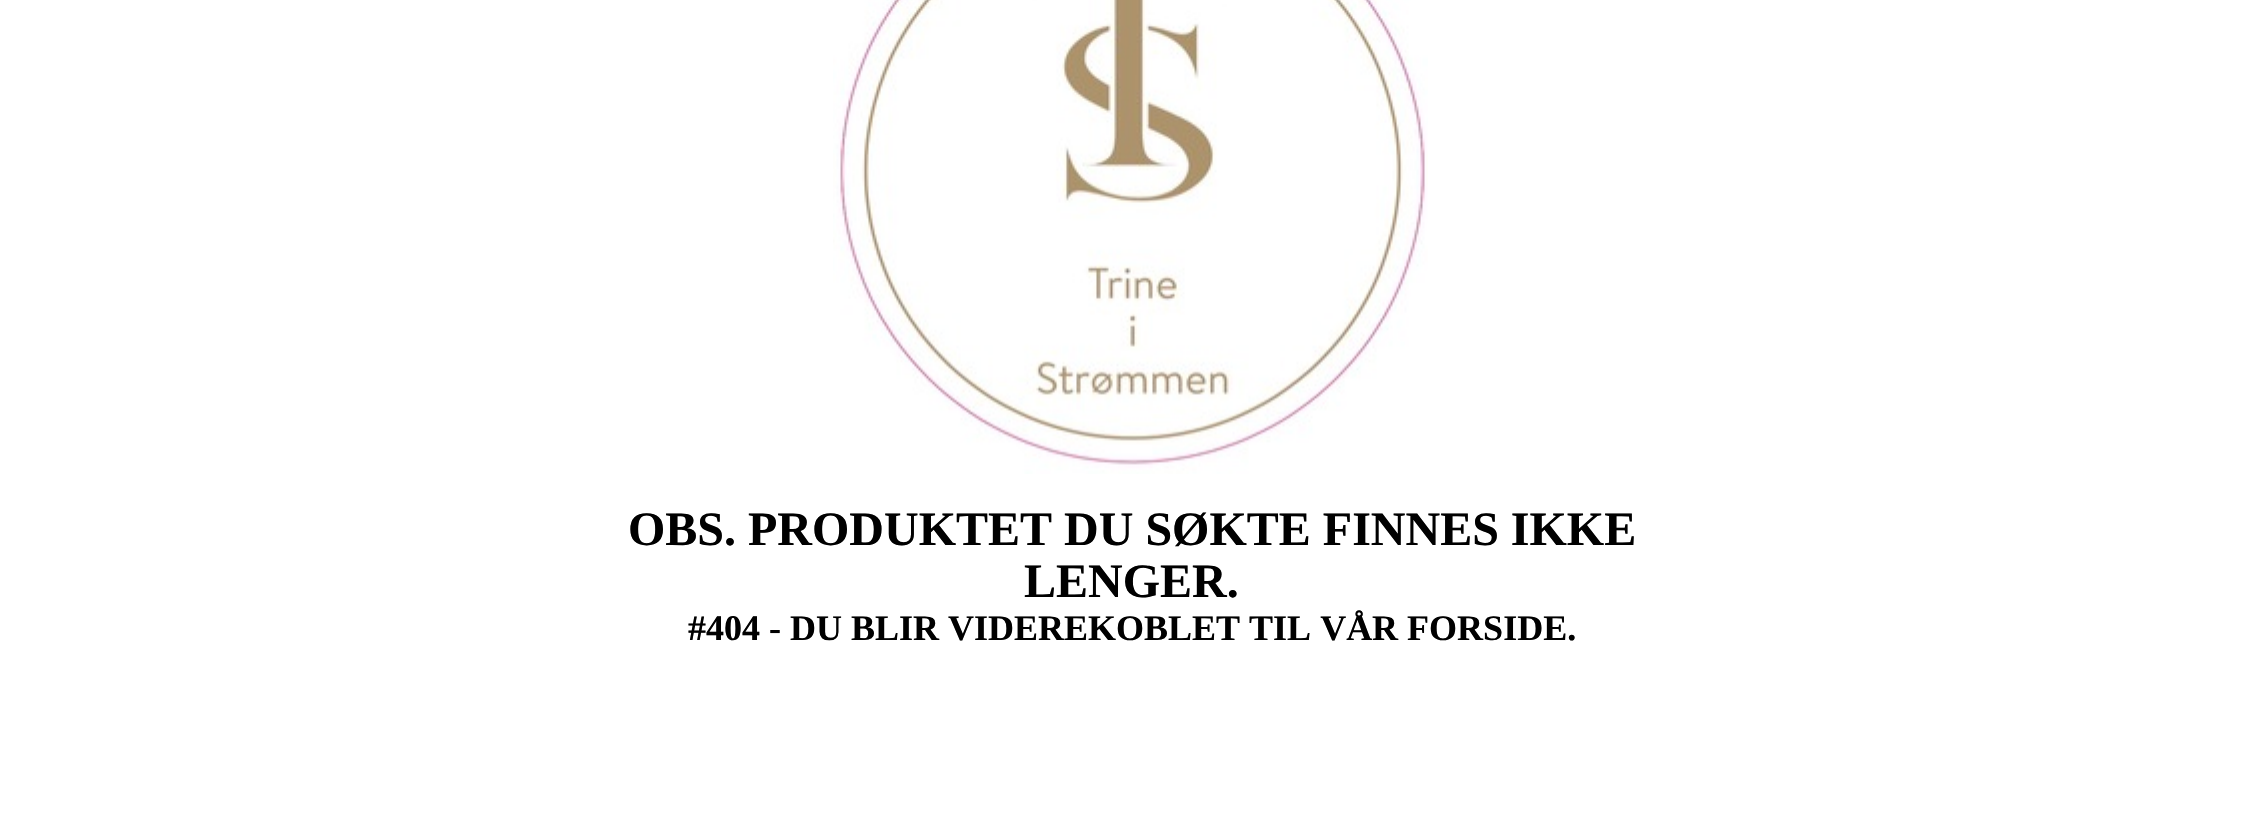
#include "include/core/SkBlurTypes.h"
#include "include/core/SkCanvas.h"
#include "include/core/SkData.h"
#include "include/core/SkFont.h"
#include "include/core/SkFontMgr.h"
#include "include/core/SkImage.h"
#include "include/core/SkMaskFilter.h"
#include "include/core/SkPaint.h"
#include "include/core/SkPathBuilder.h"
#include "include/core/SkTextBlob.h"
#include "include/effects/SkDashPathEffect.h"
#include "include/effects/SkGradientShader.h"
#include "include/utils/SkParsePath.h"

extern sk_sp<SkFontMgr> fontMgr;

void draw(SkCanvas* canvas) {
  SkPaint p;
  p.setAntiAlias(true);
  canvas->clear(SK_ColorWHITE);
  canvas->drawImageRect(SkImages::DeferredFromEncodedData(SkData::MakeFromFileName("images/1.png")), SkRect::MakeLTRB(833, 0, 1428, 474), SkSamplingOptions());
  SkFont font1(fontMgr->matchFamilyStyle("Liberation Serif", SkFontStyle::Bold()), 48);
  font1.setSubpixel(true);
  p.setColor(SK_ColorBLACK);
  canvas->drawString("OBS. PRODUKTET DU SØKTE FINNES IKKE", 628, 545, font1, p);
  canvas->drawString("LENGER.", 1024, 597, font1, p);
  SkFont font2(fontMgr->matchFamilyStyle("Liberation Serif", SkFontStyle::Bold()), 36);
  font2.setSubpixel(true);
  canvas->drawString("#404 - DU BLIR VIDEREKOBLET TIL VÅR FORSIDE.", 688, 640, font2, p);
}
